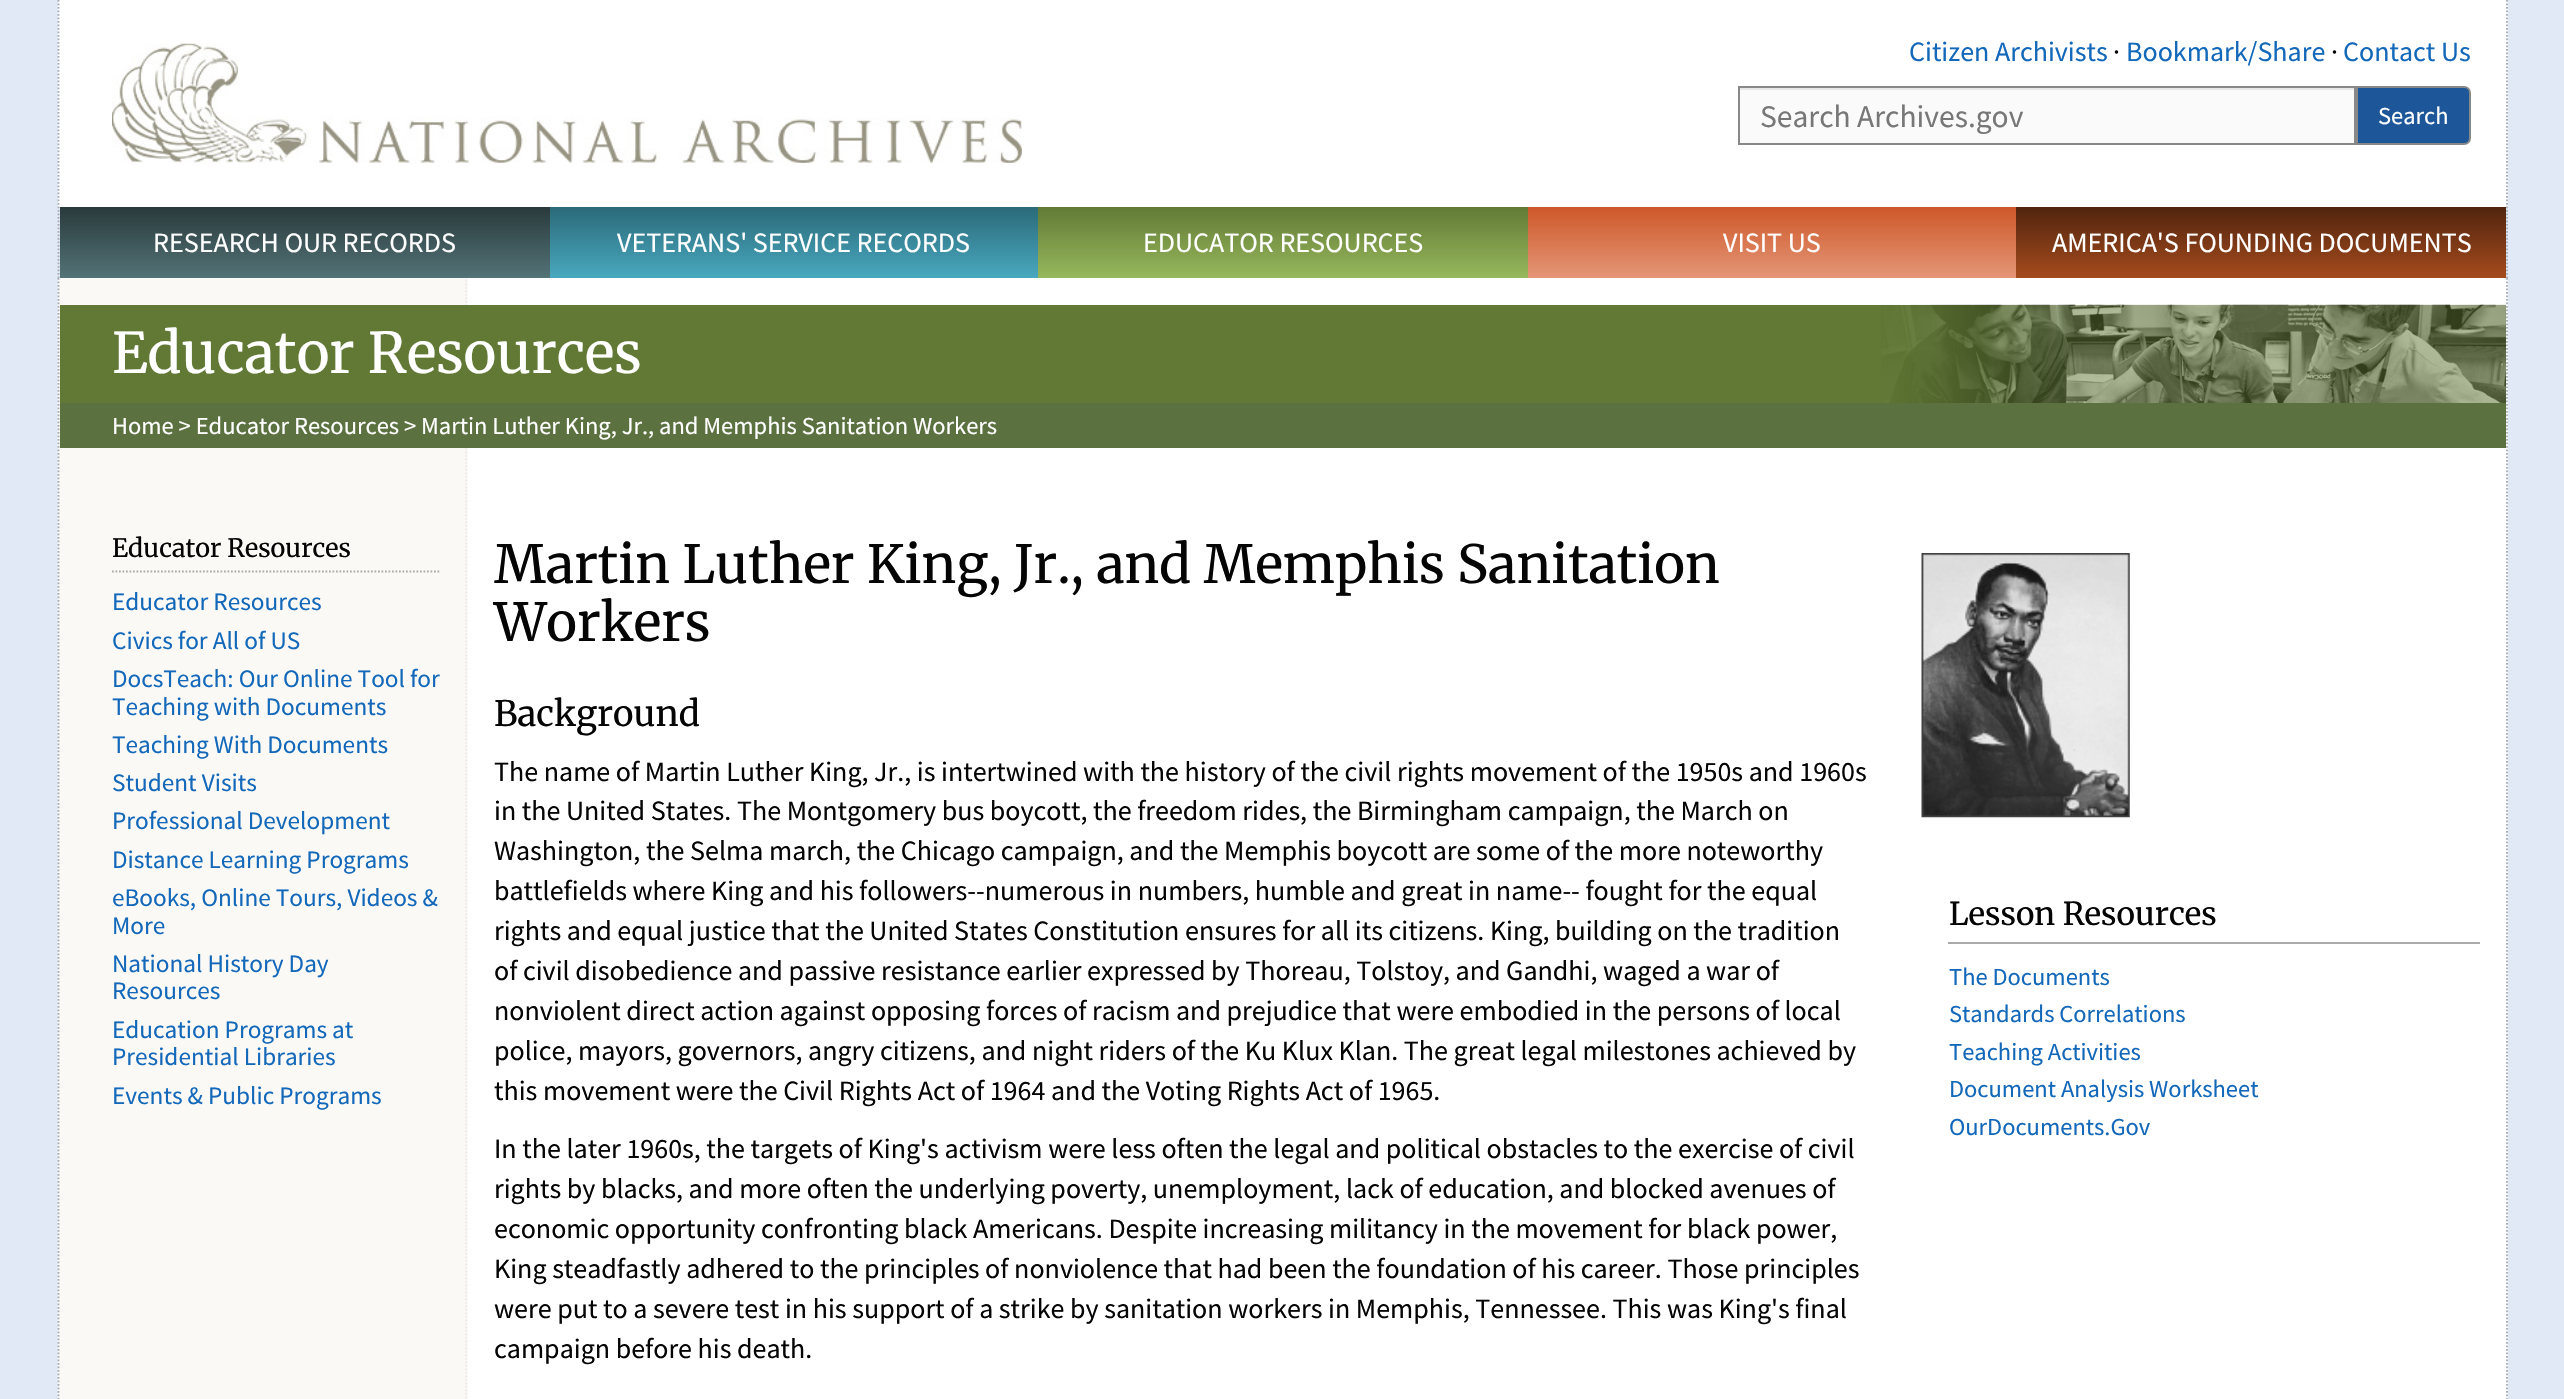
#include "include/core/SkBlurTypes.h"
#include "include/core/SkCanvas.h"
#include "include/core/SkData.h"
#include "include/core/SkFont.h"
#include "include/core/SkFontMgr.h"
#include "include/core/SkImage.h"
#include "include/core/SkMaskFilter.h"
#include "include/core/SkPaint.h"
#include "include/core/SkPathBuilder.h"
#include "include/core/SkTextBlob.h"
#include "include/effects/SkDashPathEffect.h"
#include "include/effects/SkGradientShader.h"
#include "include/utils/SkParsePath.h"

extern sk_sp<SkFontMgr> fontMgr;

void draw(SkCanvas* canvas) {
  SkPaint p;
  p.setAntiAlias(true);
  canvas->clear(SK_ColorWHITE);
  {
    const SkColor colors[] = {SkColorSetRGB(226, 233, 246), SkColorSetRGB(45, 77, 118)};
    const float stops[] = {0.39f, 1};
    const SkPoint ends[] = {{1283, 0}, {1283, 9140}};
    p.setShader(SkGradientShader::MakeLinear(ends, colors, stops, 2, SkTileMode::kClamp));
    p.setAlpha(255);
  }
  canvas->drawRect(SkRect::MakeLTRB(0, 0, 2564, 1399), p);
  p.setShader(nullptr);
  p.setColor(SK_ColorWHITE);
  canvas->drawRect(SkRect::MakeLTRB(58, 0, 2508, 207), p);
  p.setStyle(SkPaint::kStroke_Style);
  p.setStrokeWidth(1.8f);
  p.setColor(SkColorSetRGB(164, 171, 179));
  p.setPathEffect(SkDashPathEffect::Make({{1.75f, 1.75f}}, 0));
  canvas->drawPath(SkPathBuilder().moveTo(2507, 0).lineTo(2507, 206.5f).detach(), p);
  p.setPathEffect(nullptr);
  p.setPathEffect(SkDashPathEffect::Make({{1.75f, 1.75f}}, 0));
  canvas->drawPath(SkPathBuilder().moveTo(58.5f, 0).lineTo(58.5f, 206.5f).detach(), p);
  p.setPathEffect(nullptr);
  canvas->drawImageRect(SkImages::DeferredFromEncodedData(SkData::MakeFromFileName("images/1.png")), SkRect::MakeLTRB(112, 43, 1022, 163), SkSamplingOptions());
  p.setStyle(SkPaint::kFill_Style);
  p.setColor(SkColorSetRGB(250, 250, 250));
  canvas->drawRect(SkRect::MakeLTRB(1740, 90, 2354, 143), p);
  p.setColor(SkColorSetRGB(231, 231, 231));
  canvas->drawRect(SkRect::MakeLTRB(1740, 88, 2354, 90), p);
  p.setStyle(SkPaint::kStroke_Style);
  p.setStrokeWidth(2);
  p.setColor(SkColorSetRGB(136, 136, 136));
  canvas->drawRect(SkRect::MakeLTRB(1739, 87, 2355, 144), p);
  p.setStyle(SkPaint::kFill_Style);
  p.setColor(SkColorSetRGB(30, 87, 153));
  canvas->drawPath(SkPathBuilder().moveTo(2357, 87).lineTo(2464, 87).cubicTo(2467.5f, 87, 2470, 89.5f, 2470, 93).lineTo(2470, 138).cubicTo(2470, 141.5f, 2467.5f, 144, 2464, 144).lineTo(2357, 144).close().detach(), p);
  p.setStyle(SkPaint::kStroke_Style);
  p.setColor(SkColorSetRGB(136, 136, 136));
  canvas->drawPath(SkPathBuilder().moveTo(2357, 87).lineTo(2464, 87).cubicTo(2467.5f, 87, 2470, 89.5f, 2470, 93).lineTo(2470, 138).cubicTo(2470, 141.5f, 2467.5f, 144, 2464, 144).lineTo(2357, 144).close().detach(), p);
  p.setStrokeWidth(1.8f);
  p.setColor(SkColorSetRGB(164, 171, 179));
  p.setPathEffect(SkDashPathEffect::Make({{1.75f, 1.75f}}, 0));
  canvas->drawPath(SkPathBuilder().moveTo(2507, 206.5f).lineTo(2507, 278).detach(), p);
  p.setPathEffect(nullptr);
  p.setPathEffect(SkDashPathEffect::Make({{1.75f, 1.75f}}, 0));
  canvas->drawPath(SkPathBuilder().moveTo(58.5f, 206.5f).lineTo(58.5f, 278).detach(), p);
  p.setPathEffect(nullptr);
  p.setStyle(SkPaint::kFill_Style);
  {
    const SkColor colors[] = {SkColorSetRGB(41, 57, 59), SkColorSetRGB(83, 115, 119)};
    const float stops[] = {0, 1};
    const SkPoint ends[] = {{305, 206}, {305, 278}};
    p.setShader(SkGradientShader::MakeLinear(ends, colors, stops, 2, SkTileMode::kClamp));
    p.setAlpha(255);
  }
  canvas->drawRect(SkRect::MakeLTRB(60, 207, 550, 278), p);
  {
    const SkColor colors[] = {SkColorSetRGB(42, 105, 120), SkColorSetRGB(73, 168, 191)};
    const float stops[] = {0, 1};
    const SkPoint ends[] = {{794, 206}, {794, 278}};
    p.setShader(SkGradientShader::MakeLinear(ends, colors, stops, 2, SkTileMode::kClamp));
    p.setAlpha(255);
  }
  canvas->drawRect(SkRect::MakeLTRB(550, 207, 1038, 278), p);
  {
    const SkColor colors[] = {SkColorSetRGB(97, 121, 53), SkColorSetRGB(151, 184, 92)};
    const float stops[] = {0, 1};
    const SkPoint ends[] = {{1283, 206}, {1283, 278}};
    p.setShader(SkGradientShader::MakeLinear(ends, colors, stops, 2, SkTileMode::kClamp));
    p.setAlpha(255);
  }
  canvas->drawRect(SkRect::MakeLTRB(1038, 207, 1528, 278), p);
  {
    const SkColor colors[] = {SkColorSetRGB(205, 87, 40), SkColorSetRGB(228, 150, 119)};
    const float stops[] = {0, 1};
    const SkPoint ends[] = {{1772, 206}, {1772, 278}};
    p.setShader(SkGradientShader::MakeLinear(ends, colors, stops, 2, SkTileMode::kClamp));
    p.setAlpha(255);
  }
  canvas->drawRect(SkRect::MakeLTRB(1528, 207, 2016, 278), p);
  {
    const SkColor colors[] = {SkColorSetRGB(79, 36, 14), SkColorSetRGB(166, 75, 29)};
    const float stops[] = {0, 1};
    const SkPoint ends[] = {{2261, 206}, {2261, 278}};
    p.setShader(SkGradientShader::MakeLinear(ends, colors, stops, 2, SkTileMode::kClamp));
    p.setAlpha(255);
  }
  canvas->drawRect(SkRect::MakeLTRB(2016, 207, 2506, 278), p);
  p.setShader(nullptr);
  p.setColor(SK_ColorWHITE);
  canvas->drawRect(SkRect::MakeLTRB(59, 278, 2508, 1399), p);
  canvas->drawImageRect(SkImages::DeferredFromEncodedData(SkData::MakeFromFileName("images/2.png")), SkRect::MakeLTRB(57, 278, 468, 1399), SkSamplingOptions());
  p.setStyle(SkPaint::kStroke_Style);
  p.setColor(SkColorSetRGB(164, 171, 179));
  p.setPathEffect(SkDashPathEffect::Make({{1.75f, 1.75f}}, 0));
  canvas->drawPath(SkPathBuilder().moveTo(2507, 278).lineTo(2507, 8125).detach(), p);
  p.setPathEffect(nullptr);
  p.setPathEffect(SkDashPathEffect::Make({{1.75f, 1.75f}}, 0));
  canvas->drawPath(SkPathBuilder().moveTo(58.5f, 278).lineTo(58.5f, 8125).detach(), p);
  p.setPathEffect(nullptr);
  p.setStyle(SkPaint::kFill_Style);
  p.setColor(SkColorSetRGB(97, 121, 53));
  canvas->drawRect(SkRect::MakeLTRB(60, 305, 2506, 403), p);
  canvas->drawImageRect(SkImages::DeferredFromEncodedData(SkData::MakeFromFileName("images/3.png")), SkRect::MakeLTRB(1881, 304, 2506, 403), SkSamplingOptions());
  p.setColor(SkColorSetRGB(92, 113, 64));
  canvas->drawRect(SkRect::MakeLTRB(60, 403, 2506, 448), p);
  p.setStyle(SkPaint::kStroke_Style);
  p.setColor(SkColorSetRGB(170, 170, 170));
  p.setPathEffect(SkDashPathEffect::Make({{1.75f, 1.75f}}, 0));
  canvas->drawPath(SkPathBuilder().moveTo(112, 571.5f).lineTo(441, 571.5f).detach(), p);
  p.setPathEffect(nullptr);
  canvas->drawImageRect(SkImages::DeferredFromEncodedData(SkData::MakeFromFileName("images/4.png")), SkRect::MakeLTRB(1921, 553, 2130, 818), SkSamplingOptions());
  p.setStyle(SkPaint::kFill_Style);
  canvas->drawRect(SkRect::MakeLTRB(1948, 942, 2480, 944), p);
  SkFont font1(fontMgr->matchFamilyStyle("Source Sans Pro", SkFontStyle::Normal()), 28);
  font1.setSubpixel(true);
  p.setColor(SkColorSetRGB(19, 104, 186));
  canvas->drawString("Citizen Archivists", 1909, 61, font1, p);
  p.setColor(SkColorSetRGB(5, 5, 5));
  canvas->drawString("·", 2113, 61, font1, p);
  p.setColor(SkColorSetRGB(19, 104, 186));
  canvas->drawString("Bookmark/Share", 2126, 61, font1, p);
  p.setColor(SkColorSetRGB(5, 5, 5));
  canvas->drawString("·", 2331, 61, font1, p);
  p.setColor(SkColorSetRGB(19, 104, 186));
  canvas->drawString("Contact Us", 2343, 61, font1, p);
  SkFont font2(fontMgr->matchFamilyStyle("Source Sans Pro", SkFontStyle::Normal()), 31.5f);
  font2.setSubpixel(true);
  p.setColor(SkColorSetRGB(119, 119, 119));
  canvas->drawString("Search Archives.gov", 1760, 127, font2, p);
  SkFont font3(fontMgr->matchFamilyStyle("Source Sans Pro", SkFontStyle::Normal()), 24.5f);
  font3.setSubpixel(true);
  p.setColor(SK_ColorWHITE);
  canvas->drawString("Search", 2378, 124, font3, p);
  canvas->drawString("RESEARCH OUR RECORDS", 153, 252, font1, p);
  canvas->drawString("VETERANS' SERVICE RECORDS", 617, 252, font1, p);
  canvas->drawString("EDUCATOR RESOURCES", 1143, 252, font1, p);
  canvas->drawString("VISIT US", 1723, 252, font1, p);
  canvas->drawString("AMERICA'S FOUNDING DOCUMENTS", 2052, 252, font1, p);
  SkFont font4(fontMgr->matchFamilyStyle("Merriweather", SkFontStyle(300, SkFontStyle::kNormal_Width, SkFontStyle::kUpright_Slant)), 56);
  font4.setSubpixel(true);
  canvas->drawString("Educator Resources", 112, 373, font4, p);
  canvas->drawString("Home > Educator Resources > Martin Luther King, Jr., and Memphis Sanitation Workers", 112, 434, font3, p);
  SkFont font5(fontMgr->matchFamilyStyle("Merriweather", SkFontStyle(300, SkFontStyle::kNormal_Width, SkFontStyle::kUpright_Slant)), 25.25f);
  font5.setSubpixel(true);
  p.setColor(SkColorSetRGB(5, 5, 5));
  canvas->drawString("Educator Resources", 112, 557, font5, p);
  SkFont font6(fontMgr->matchFamilyStyle("Source Sans Pro", SkFontStyle::Normal()), 25.25f);
  font6.setSubpixel(true);
  p.setColor(SkColorSetRGB(19, 104, 186));
  canvas->drawString("Educator Resources", 112, 610, font6, p);
  canvas->drawString("Civics for All of US", 112, 649, font6, p);
  canvas->drawString("DocsTeach: Our Online Tool for", 112, 687, font6, p);
  canvas->drawString("Teaching with Documents", 112, 715, font6, p);
  canvas->drawString("Teaching With Documents", 112, 753, font6, p);
  canvas->drawString("Student Visits", 112, 791, font6, p);
  canvas->drawString("Professional Development", 112, 829, font6, p);
  canvas->drawString("Distance Learning Programs", 112, 868, font6, p);
  canvas->drawString("eBooks, Online Tours, Videos &", 112, 906, font6, p);
  canvas->drawString("More", 112, 934, font6, p);
  canvas->drawString("National History Day", 112, 972, font6, p);
  canvas->drawString("Resources", 112, 999, font6, p);
  canvas->drawString("Education Programs at", 112, 1038, font6, p);
  canvas->drawString("Presidential Libraries", 112, 1065, font6, p);
  canvas->drawString("Events & Public Programs", 112, 1104, font6, p);
  SkFont font7(fontMgr->matchFamilyStyle("Merriweather", SkFontStyle(300, SkFontStyle::kNormal_Width, SkFontStyle::kUpright_Slant)), 52.5f);
  font7.setSubpixel(true);
  p.setColor(SkColorSetRGB(5, 5, 5));
  canvas->drawString("Martin Luther King, Jr., and Memphis Sanitation", 494, 583, font7, p);
  canvas->drawString("Workers", 494, 641, font7, p);
  SkFont font8(fontMgr->matchFamilyStyle("Merriweather", SkFontStyle(300, SkFontStyle::kNormal_Width, SkFontStyle::kUpright_Slant)), 35);
  font8.setSubpixel(true);
  canvas->drawString("Background", 494, 726, font8, p);
  canvas->drawString("The name of Martin Luther King, Jr., is intertwined with the history of the civil rights movement of the 1950s and 1960s", 494, 781, font1, p);
  canvas->drawString("in the United States. The Montgomery bus boycott, the freedom rides, the Birmingham campaign, the March on", 494, 820, font1, p);
  canvas->drawString("Washington, the Selma march, the Chicago campaign, and the Memphis boycott are some of the more noteworthy", 494, 860, font1, p);
  canvas->drawString("battlefields where King and his followers--numerous in numbers, humble and great in name-- fought for the equal", 494, 900, font1, p);
  canvas->drawString("rights and equal justice that the United States Constitution ensures for all its citizens. King, building on the tradition", 494, 940, font1, p);
  canvas->drawString("of civil disobedience and passive resistance earlier expressed by Thoreau, Tolstoy, and Gandhi, waged a war of", 494, 980, font1, p);
  canvas->drawString("nonviolent direct action against opposing forces of racism and prejudice that were embodied in the persons of local", 494, 1020, font1, p);
  canvas->drawString("police, mayors, governors, angry citizens, and night riders of the Ku Klux Klan. The great legal milestones achieved by", 494, 1060, font1, p);
  canvas->drawString("this movement were the Civil Rights Act of 1964 and the Voting Rights Act of 1965.", 494, 1100, font1, p);
  canvas->drawString("In the later 1960s, the targets of King's activism were less often the legal and political obstacles to the exercise of civil", 494, 1158, font1, p);
  canvas->drawString("rights by blacks, and more often the underlying poverty, unemployment, lack of education, and blocked avenues of", 494, 1198, font1, p);
  canvas->drawString("economic opportunity confronting black Americans. Despite increasing militancy in the movement for black power,", 494, 1238, font1, p);
  canvas->drawString("King steadfastly adhered to the principles of nonviolence that had been the foundation of his career. Those principles", 494, 1278, font1, p);
  canvas->drawString("were put to a severe test in his support of a strike by sanitation workers in Memphis, Tennessee. This was King's final", 494, 1318, font1, p);
  canvas->drawString("campaign before his death.", 494, 1358, font1, p);
  SkFont font9(fontMgr->matchFamilyStyle("Merriweather", SkFontStyle(300, SkFontStyle::kNormal_Width, SkFontStyle::kUpright_Slant)), 31.5f);
  font9.setSubpixel(true);
  canvas->drawString("Lesson Resources", 1949, 925, font9, p);
  p.setColor(SkColorSetRGB(19, 104, 186));
  canvas->drawString("The Documents", 1949, 985, font3, p);
  canvas->drawString("Standards Correlations", 1949, 1022, font3, p);
  canvas->drawString("Teaching Activities", 1949, 1060, font3, p);
  canvas->drawString("Document Analysis Worksheet", 1949, 1097, font3, p);
  canvas->drawString("OurDocuments.Gov", 1949, 1135, font3, p);
}
